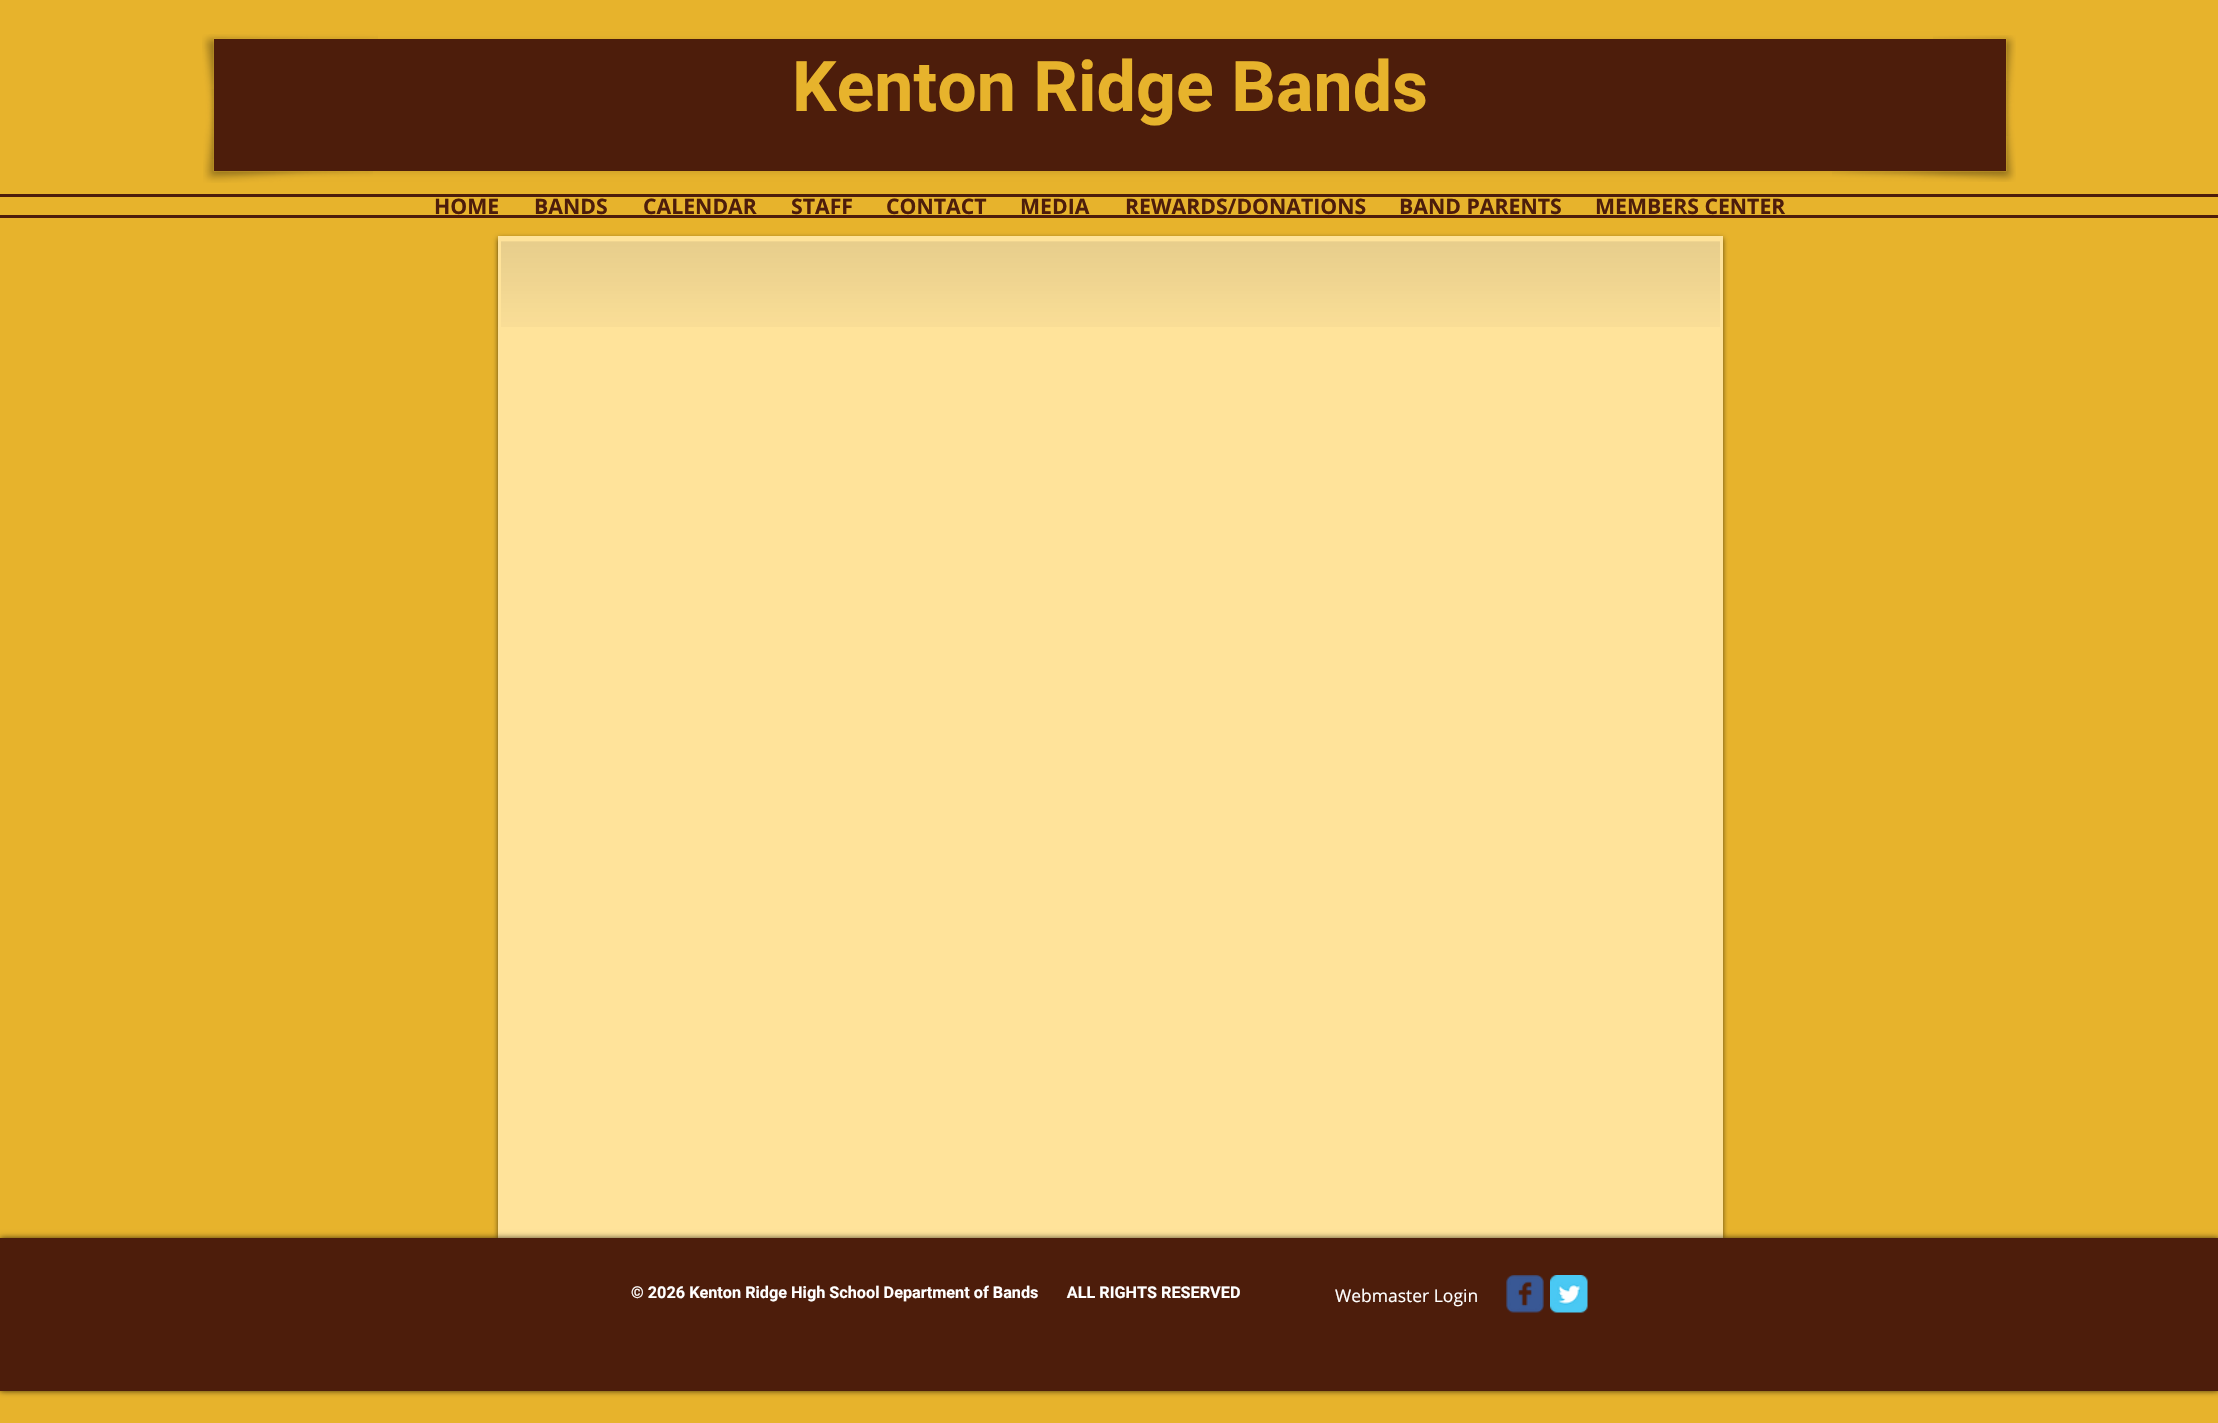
#include "include/core/SkBlurTypes.h"
#include "include/core/SkCanvas.h"
#include "include/core/SkData.h"
#include "include/core/SkFont.h"
#include "include/core/SkFontMgr.h"
#include "include/core/SkImage.h"
#include "include/core/SkMaskFilter.h"
#include "include/core/SkPaint.h"
#include "include/core/SkPathBuilder.h"
#include "include/core/SkTextBlob.h"
#include "include/effects/SkDashPathEffect.h"
#include "include/effects/SkGradientShader.h"
#include "include/utils/SkParsePath.h"

extern sk_sp<SkFontMgr> fontMgr;

void draw(SkCanvas* canvas) {
  SkPaint p;
  p.setAntiAlias(true);
  canvas->clear(SkColorSetRGB(231, 179, 44));
  canvas->drawImageRect(SkImages::DeferredFromEncodedData(SkData::MakeFromFileName("images/1.png")), SkRect::MakeLTRB(202, 34, 378, 159), SkSamplingOptions());
  canvas->drawImageRect(SkImages::DeferredFromEncodedData(SkData::MakeFromFileName("images/2.png")), SkRect::MakeLTRB(1933, 35, 2016, 136), SkSamplingOptions());
  canvas->drawImageRect(SkImages::DeferredFromEncodedData(SkData::MakeFromFileName("images/3.png")), SkRect::MakeLTRB(203, 89, 373, 183), SkSamplingOptions());
  canvas->drawImageRect(SkImages::DeferredFromEncodedData(SkData::MakeFromFileName("images/4.png")), SkRect::MakeLTRB(1832, 81, 2016, 182), SkSamplingOptions());
  p.setColor(SkColorSetARGB(26, 0, 0, 0));
  p.setMaskFilter(SkMaskFilter::MakeBlur(kNormal_SkBlurStyle, 3));
  canvas->drawRect(SkRect::MakeLTRB(214, 40, 2006, 173), p);
  p.setMaskFilter(nullptr);
  p.setColor(SkColorSetRGB(77, 29, 11));
  canvas->drawRect(SkRect::MakeLTRB(214, 39, 2006, 171), p);
  canvas->drawRect(SkRect::MakeLTRB(0, 194, 2218, 197), p);
  canvas->drawRect(SkRect::MakeLTRB(0, 215, 2218, 218), p);
  p.setColor(SkColorSetARGB(153, 0, 0, 0));
  p.setMaskFilter(SkMaskFilter::MakeBlur(kNormal_SkBlurStyle, 2.5f));
  canvas->drawRect(SkRect::MakeLTRB(498, 238, 1723, 1239), p);
  p.setMaskFilter(nullptr);
  p.setColor(SkColorSetRGB(255, 227, 154));
  canvas->drawRect(SkRect::MakeLTRB(501, 239, 1720, 1235), p);
  canvas->drawImageRect(SkImages::DeferredFromEncodedData(SkData::MakeFromFileName("images/5.png")), SkRect::MakeLTRB(497, 241, 1720, 327), SkSamplingOptions());
  p.setStyle(SkPaint::kStroke_Style);
  p.setStrokeWidth(3);
  canvas->drawRect(SkRect::MakeLTRB(499.5f, 237.5f, 1721.5f, 1236.5f), p);
  p.setStyle(SkPaint::kFill_Style);
  p.setColor(SkColorSetARGB(179, 0, 0, 0));
  p.setMaskFilter(SkMaskFilter::MakeBlur(kNormal_SkBlurStyle, 3));
  canvas->drawRect(SkRect::MakeLTRB(0, 1238, 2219, 1391), p);
  p.setMaskFilter(nullptr);
  p.setColor(SkColorSetRGB(77, 29, 11));
  canvas->drawRect(SkRect::MakeLTRB(0, 1238, 2218, 1391), p);
  canvas->drawImageRect(SkImages::DeferredFromEncodedData(SkData::MakeFromFileName("images/6.png")), SkRect::MakeLTRB(1506, 1275, 1544, 1313), SkSamplingOptions());
  canvas->drawImageRect(SkImages::DeferredFromEncodedData(SkData::MakeFromFileName("images/7.png")), SkRect::MakeLTRB(1550, 1275, 1588, 1313), SkSamplingOptions());
  SkFont font1(fontMgr->matchFamilyStyle("Roboto", SkFontStyle::Bold()), 70);
  font1.setSubpixel(true);
  p.setColor(SkColorSetRGB(231, 179, 44));
  canvas->drawString("Kenton Ridge Bands", 792, 111, font1, p);
  SkFont font2(fontMgr->matchFamilyStyle("Open Sans", SkFontStyle::Bold()), 21.25f);
  font2.setSubpixel(true);
  p.setColor(SkColorSetRGB(77, 29, 11));
  canvas->drawString("HOME", 434, 214, font2, p);
  canvas->drawString("BANDS", 534, 214, font2, p);
  canvas->drawString("CALENDAR", 643, 214, font2, p);
  canvas->drawString("STAFF", 791, 214, font2, p);
  canvas->drawString("CONTACT", 886, 214, font2, p);
  canvas->drawString("MEDIA", 1020, 214, font2, p);
  canvas->drawString("REWARDS/DONATIONS", 1125, 214, font2, p);
  canvas->drawString("BAND PARENTS", 1399, 214, font2, p);
  canvas->drawString("MEMBERS CENTER", 1595, 214, font2, p);
  SkFont font3(fontMgr->matchFamilyStyle("Roboto", SkFontStyle::Bold()), 16.25f);
  font3.setSubpixel(true);
  p.setColor(SK_ColorWHITE);
  canvas->drawString("© 2026 Kenton Ridge High School Department of Bands       ALL RIGHTS RESERVED", 631, 1298, font3, p);
  SkFont font4(fontMgr->matchFamilyStyle("Open Sans", SkFontStyle::Normal()), 17.5f);
  font4.setSubpixel(true);
  canvas->drawString("Webmaster Login", 1335, 1302, font4, p);
}
